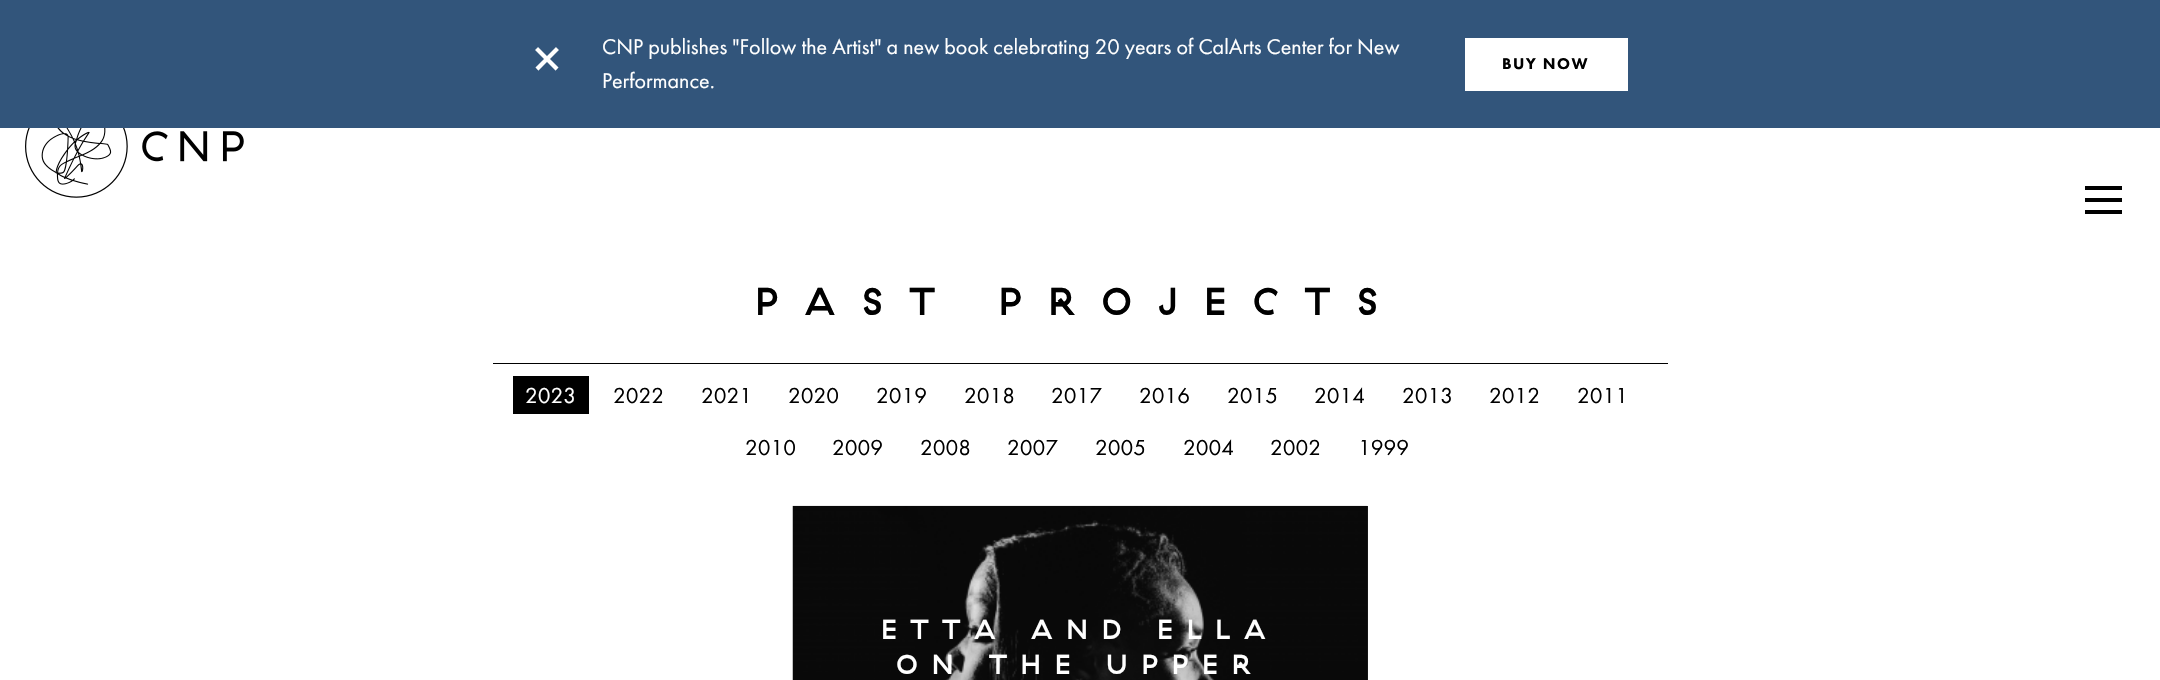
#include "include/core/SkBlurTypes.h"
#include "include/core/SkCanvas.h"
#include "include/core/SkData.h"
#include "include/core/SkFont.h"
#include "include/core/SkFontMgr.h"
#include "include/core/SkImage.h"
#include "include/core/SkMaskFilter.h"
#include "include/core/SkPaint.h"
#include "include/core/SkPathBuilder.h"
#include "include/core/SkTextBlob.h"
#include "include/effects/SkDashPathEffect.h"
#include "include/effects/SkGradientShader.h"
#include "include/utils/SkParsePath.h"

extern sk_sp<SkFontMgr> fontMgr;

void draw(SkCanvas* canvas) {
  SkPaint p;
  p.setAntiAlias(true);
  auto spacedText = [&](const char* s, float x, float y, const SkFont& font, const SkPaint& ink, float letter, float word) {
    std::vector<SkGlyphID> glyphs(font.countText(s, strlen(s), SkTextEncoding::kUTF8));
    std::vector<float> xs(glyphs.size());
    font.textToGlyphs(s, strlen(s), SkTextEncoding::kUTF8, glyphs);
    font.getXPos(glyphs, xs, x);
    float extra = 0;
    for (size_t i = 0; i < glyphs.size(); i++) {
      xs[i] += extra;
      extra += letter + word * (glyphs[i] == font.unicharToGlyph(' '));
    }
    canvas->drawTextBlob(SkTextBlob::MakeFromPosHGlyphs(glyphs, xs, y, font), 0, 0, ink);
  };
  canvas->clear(SK_ColorWHITE);
  p.setColor(SkColorSetRGB(50, 85, 123));
  canvas->drawRect(SkRect::MakeLTRB(0, 0, 2160, 128), p);
  p.setColor(SK_ColorWHITE);
  canvas->drawRect(SkRect::MakeLTRB(1465, 38, 1628, 91), p);
  canvas->drawImageRect(SkImages::DeferredFromEncodedData(SkData::MakeFromFileName("images/1.png")), SkRect::MakeLTRB(25, 128, 244, 198), SkSamplingOptions());
  p.setColor(SK_ColorBLACK);
  canvas->drawRect(SkRect::MakeLTRB(2085, 186, 2122, 190), p);
  canvas->drawRect(SkRect::MakeLTRB(2085, 198, 2122, 202), p);
  canvas->drawRect(SkRect::MakeLTRB(2085, 210, 2122, 214), p);
  canvas->drawRect(SkRect::MakeLTRB(493, 363, 1668, 364), p);
  canvas->drawRect(SkRect::MakeLTRB(513, 376, 589, 414), p);
  p.setColor(SkColorSetRGB(26, 26, 26));
  canvas->drawRect(SkRect::MakeLTRB(1367, 506, 1368, 680), p);
  canvas->drawImageRect(SkImages::DeferredFromEncodedData(SkData::MakeFromFileName("images/2.png")), SkRect::MakeLTRB(792, 505, 1368, 680), SkSamplingOptions());
  SkFont font1(fontMgr->matchFamilyStyle("Futura PT", SkFontStyle::Normal()), 60);
  font1.setSubpixel(true);
  p.setColor(SK_ColorWHITE);
  canvas->drawString("×", 532, 79, font1, p);
  SkFont font2(fontMgr->matchFamilyStyle("Futura PT", SkFontStyle::Normal()), 22);
  font2.setSubpixel(true);
  canvas->drawString("CNP publishes \"Follow the Artist\" a new book celebrating 20 years of CalArts Center for New", 602, 54, font2, p);
  canvas->drawString("Performance.", 602, 88, font2, p);
  SkFont font3(fontMgr->matchFamilyStyle("Futura PT", SkFontStyle(900, SkFontStyle::kNormal_Width, SkFontStyle::kUpright_Slant)), 16);
  font3.setSubpixel(true);
  p.setColor(SK_ColorBLACK);
  spacedText("BUY NOW", 1502, 69, font3, p, 1.5f, 0);
  SkFont font4(fontMgr->matchFamilyStyle("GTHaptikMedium", SkFontStyle(500, SkFontStyle::kNormal_Width, SkFontStyle::kUpright_Slant)), 38.75f);
  font4.setSubpixel(true);
  spacedText("PAST PROJECTS", 755, 315, font4, p, 26.25f, 0);
  SkFont font5(fontMgr->matchFamilyStyle("Futura PT", SkFontStyle::Normal()), 22.5f);
  font5.setSubpixel(true);
  p.setColor(SK_ColorWHITE);
  canvas->drawString("2023", 525, 403, font5, p);
  p.setColor(SK_ColorBLACK);
  canvas->drawString("2022", 613, 403, font5, p);
  canvas->drawString("2021", 701, 403, font5, p);
  canvas->drawString("2020", 788, 403, font5, p);
  canvas->drawString("2019", 876, 403, font5, p);
  canvas->drawString("2018", 964, 403, font5, p);
  canvas->drawString("2017", 1051, 403, font5, p);
  canvas->drawString("2016", 1139, 403, font5, p);
  canvas->drawString("2015", 1227, 403, font5, p);
  canvas->drawString("2014", 1314, 403, font5, p);
  canvas->drawString("2013", 1402, 403, font5, p);
  canvas->drawString("2012", 1489, 403, font5, p);
  canvas->drawString("2011", 1577, 403, font5, p);
  canvas->drawString("2010", 745, 455, font5, p);
  canvas->drawString("2009", 832, 455, font5, p);
  canvas->drawString("2008", 920, 455, font5, p);
  canvas->drawString("2007", 1007, 455, font5, p);
  canvas->drawString("2005", 1095, 455, font5, p);
  canvas->drawString("2004", 1183, 455, font5, p);
  canvas->drawString("2002", 1270, 455, font5, p);
  canvas->drawString("1999", 1358, 455, font5, p);
  SkFont font6(fontMgr->matchFamilyStyle("GTHaptikMedium", SkFontStyle(500, SkFontStyle::kNormal_Width, SkFontStyle::kUpright_Slant)), 27.5f);
  font6.setSubpixel(true);
  p.setColor(SK_ColorWHITE);
  spacedText("ETTA AND ELLA", 881, 639, font6, p, 13.75f, 0);
  spacedText("ON THE UPPER", 896, 674, font6, p, 13.75f, 0);
}
